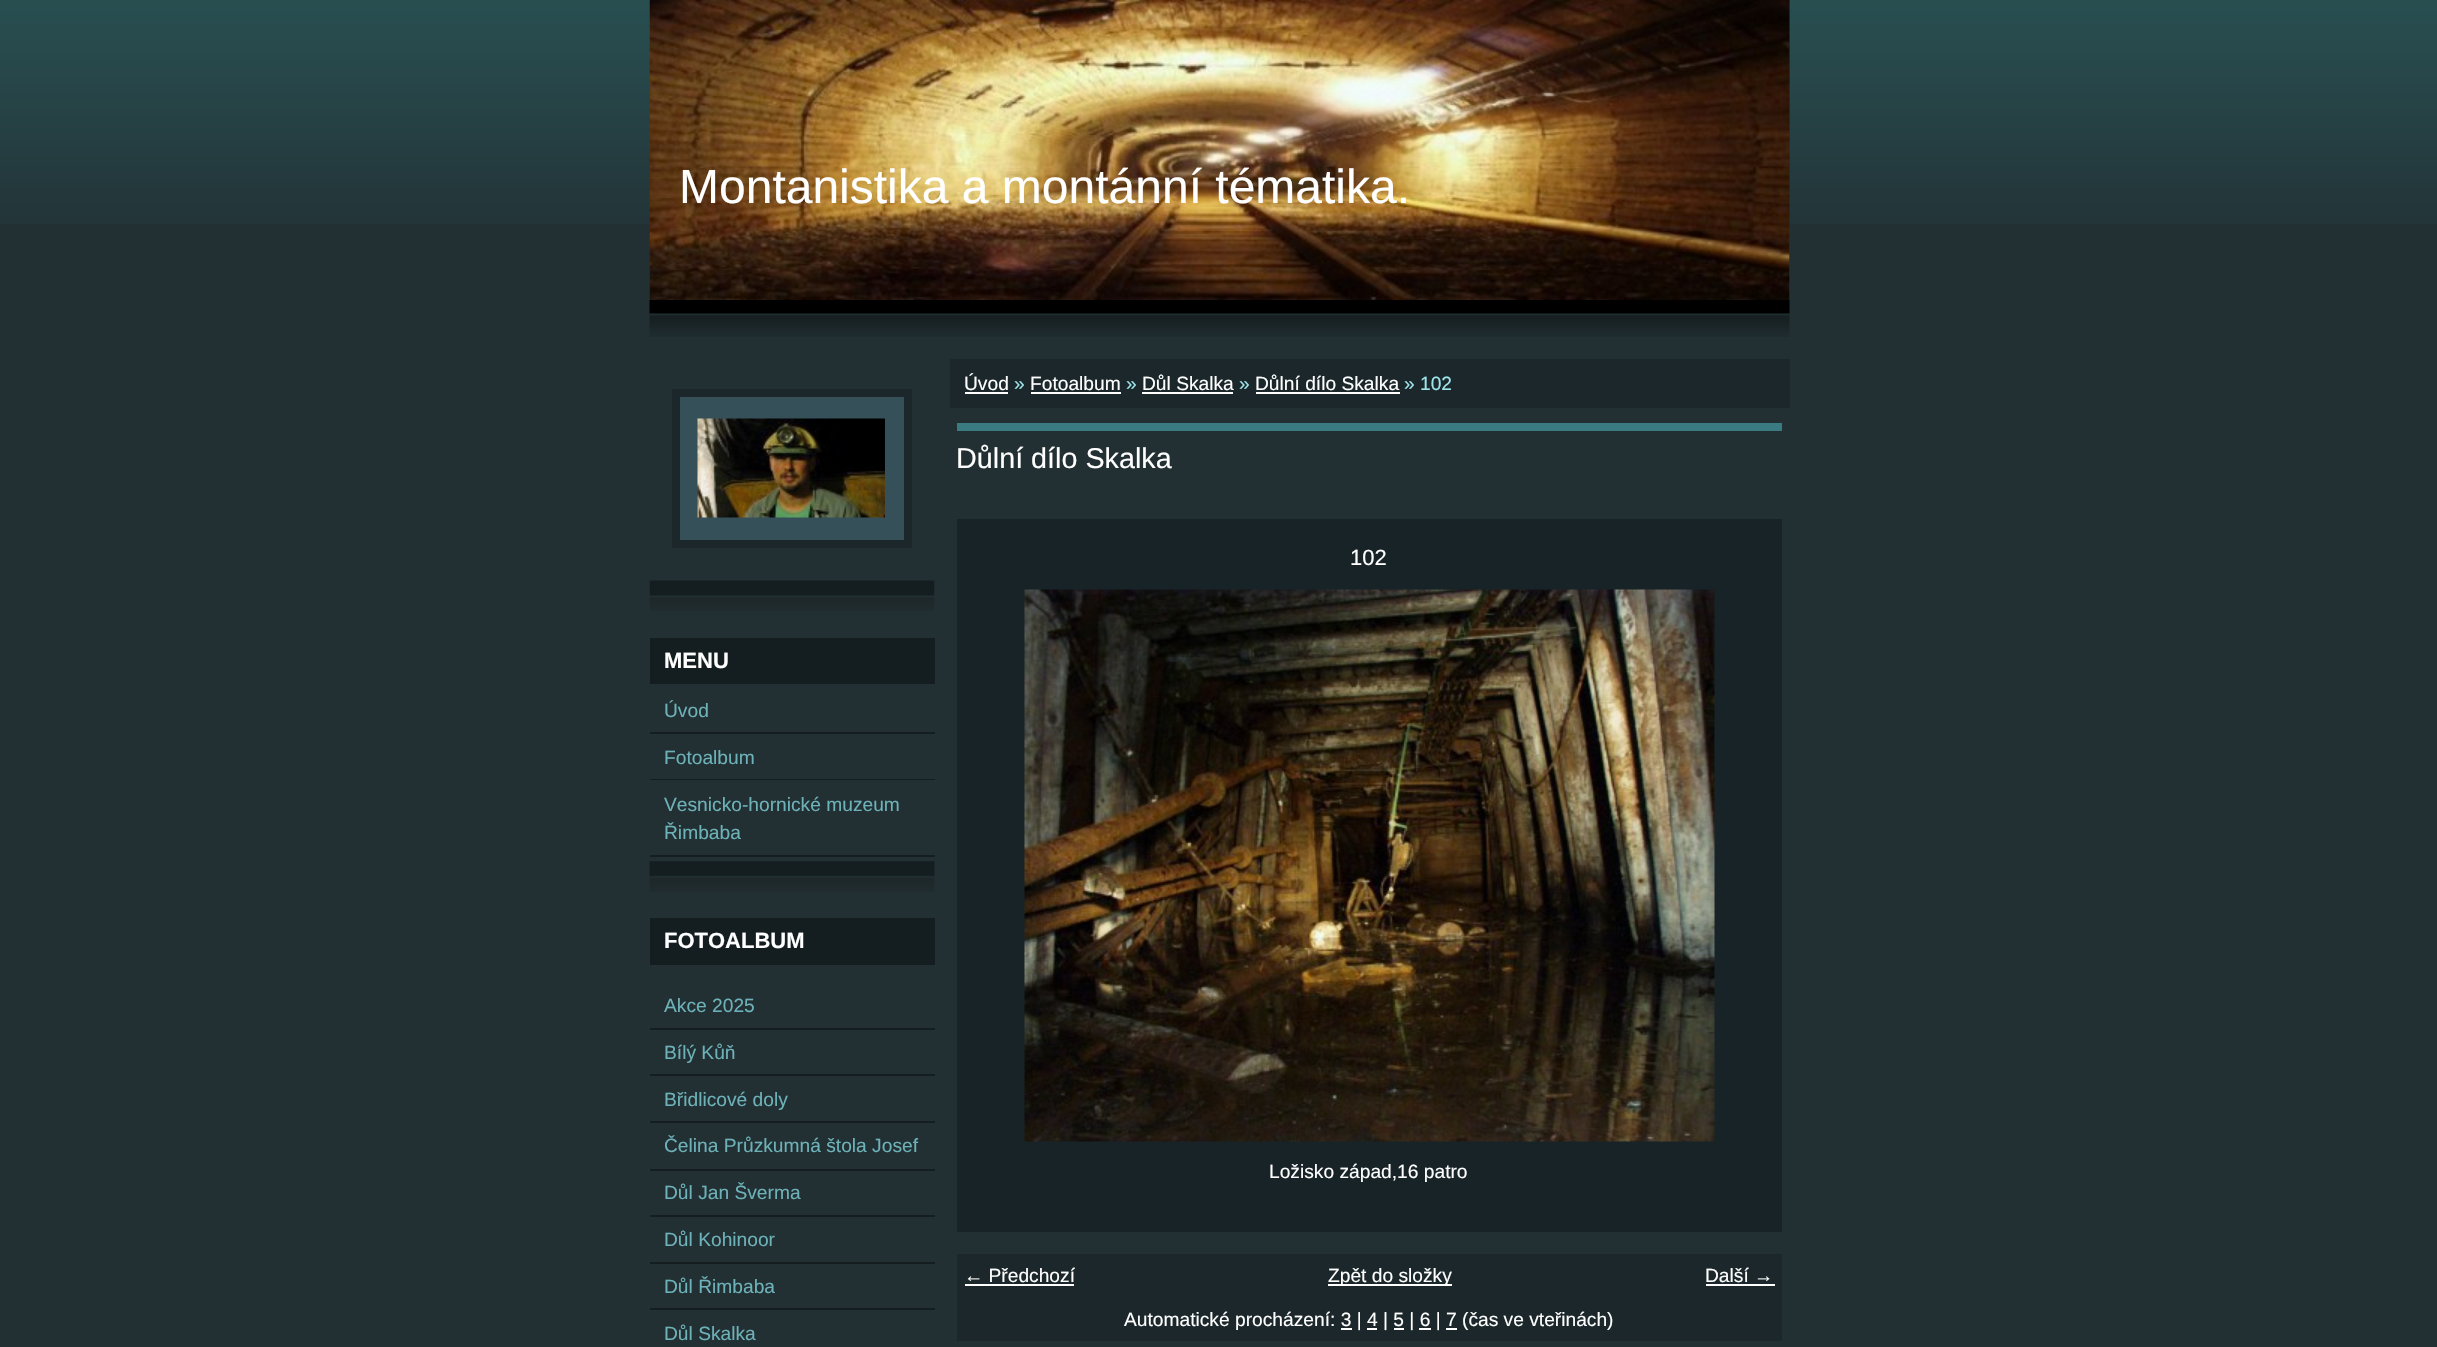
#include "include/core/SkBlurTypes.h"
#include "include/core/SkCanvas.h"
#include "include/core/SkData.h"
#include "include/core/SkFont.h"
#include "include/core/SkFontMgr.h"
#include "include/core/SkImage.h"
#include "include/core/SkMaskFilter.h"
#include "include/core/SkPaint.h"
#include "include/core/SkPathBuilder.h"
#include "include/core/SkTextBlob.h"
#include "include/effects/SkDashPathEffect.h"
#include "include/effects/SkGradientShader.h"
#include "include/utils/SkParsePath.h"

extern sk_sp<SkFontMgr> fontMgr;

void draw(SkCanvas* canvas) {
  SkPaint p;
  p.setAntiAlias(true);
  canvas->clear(SkColorSetRGB(34, 48, 52));
  canvas->drawImageRect(SkImages::DeferredFromEncodedData(SkData::MakeFromFileName("images/1.png")), SkRect::MakeLTRB(0, 0, 2437, 224), SkSamplingOptions());
  canvas->drawImageRect(SkImages::DeferredFromEncodedData(SkData::MakeFromFileName("images/2.png")), SkRect::MakeLTRB(649, 300, 1790, 337), SkSamplingOptions());
  p.setColor(SkColorSetRGB(34, 48, 52));
  canvas->drawRect(SkRect::MakeLTRB(1789, 0, 1790, 224), p);
  canvas->drawImageRect(SkImages::DeferredFromEncodedData(SkData::MakeFromFileName("images/3.png")), SkRect::MakeLTRB(649, 0, 1790, 300), SkSamplingOptions());
  canvas->drawImageRect(SkImages::DeferredFromEncodedData(SkData::MakeFromFileName("images/4.png")), SkRect::MakeLTRB(649, 580, 935, 611), SkSamplingOptions());
  p.setColor(SkColorSetRGB(53, 80, 88));
  canvas->drawRect(SkRect::MakeLTRB(676, 393, 908, 544), p);
  p.setStyle(SkPaint::kStroke_Style);
  p.setStrokeWidth(8);
  p.setColor(SkColorSetRGB(27, 39, 42));
  canvas->drawRect(SkRect::MakeLTRB(676, 393, 908, 544), p);
  canvas->drawImageRect(SkImages::DeferredFromEncodedData(SkData::MakeFromFileName("images/5.png")), SkRect::MakeLTRB(697, 418, 885, 518), SkSamplingOptions());
  p.setStyle(SkPaint::kFill_Style);
  p.setColor(SkColorSetRGB(20, 30, 33));
  canvas->drawRect(SkRect::MakeLTRB(650, 638, 935, 684), p);
  canvas->drawImageRect(SkImages::DeferredFromEncodedData(SkData::MakeFromFileName("images/6.png")), SkRect::MakeLTRB(649, 861, 935, 892), SkSamplingOptions());
  canvas->drawRect(SkRect::MakeLTRB(650, 732, 935, 734), p);
  canvas->drawRect(SkRect::MakeLTRB(650, 779, 935, 780), p);
  canvas->drawRect(SkRect::MakeLTRB(650, 855, 935, 857), p);
  canvas->drawRect(SkRect::MakeLTRB(650, 918, 935, 965), p);
  canvas->drawRect(SkRect::MakeLTRB(650, 1028, 935, 1030), p);
  canvas->drawRect(SkRect::MakeLTRB(650, 1074, 935, 1076), p);
  canvas->drawRect(SkRect::MakeLTRB(650, 1121, 935, 1123), p);
  canvas->drawRect(SkRect::MakeLTRB(650, 1169, 935, 1171), p);
  canvas->drawRect(SkRect::MakeLTRB(650, 1215, 935, 1217), p);
  canvas->drawRect(SkRect::MakeLTRB(650, 1262, 935, 1264), p);
  canvas->drawRect(SkRect::MakeLTRB(650, 1308, 935, 1310), p);
  p.setColor(SkColorSetRGB(27, 39, 42));
  canvas->drawRect(SkRect::MakeLTRB(950, 359, 1790, 408), p);
  p.setColor(SK_ColorWHITE);
  canvas->drawRect(SkRect::MakeLTRB(965, 392, 1008, 394), p);
  canvas->drawRect(SkRect::MakeLTRB(1031, 392, 1121, 394), p);
  canvas->drawRect(SkRect::MakeLTRB(1142, 392, 1233, 394), p);
  canvas->drawRect(SkRect::MakeLTRB(1256, 392, 1400, 394), p);
  p.setColor(SkColorSetRGB(57, 123, 129));
  canvas->drawRect(SkRect::MakeLTRB(957, 423, 1782, 431), p);
  p.setColor(SkColorSetRGB(24, 35, 39));
  canvas->drawRect(SkRect::MakeLTRB(957, 519, 1782, 1232), p);
  canvas->drawImageRect(SkImages::DeferredFromEncodedData(SkData::MakeFromFileName("images/7.png")), SkRect::MakeLTRB(1024, 589, 1715, 1142), SkSamplingOptions());
  p.setColor(SkColorSetRGB(27, 39, 42));
  canvas->drawRect(SkRect::MakeLTRB(957, 1254, 1782, 1341), p);
  p.setColor(SK_ColorWHITE);
  canvas->drawRect(SkRect::MakeLTRB(965, 1284, 1074, 1286), p);
  canvas->drawRect(SkRect::MakeLTRB(1328, 1284, 1452, 1286), p);
  canvas->drawRect(SkRect::MakeLTRB(1706, 1284, 1775, 1286), p);
  canvas->drawRect(SkRect::MakeLTRB(1341, 1328, 1352, 1330), p);
  canvas->drawRect(SkRect::MakeLTRB(1367, 1328, 1377, 1330), p);
  canvas->drawRect(SkRect::MakeLTRB(1394, 1328, 1404, 1330), p);
  canvas->drawRect(SkRect::MakeLTRB(1419, 1328, 1431, 1330), p);
  canvas->drawRect(SkRect::MakeLTRB(1446, 1328, 1457, 1330), p);
  SkFont font1(fontMgr->matchFamilyStyle("Liberation Sans", SkFontStyle::Normal()), 48);
  font1.setSubpixel(true);
  canvas->drawString("Montanistika a montánní tématika.", 679, 203, font1, p);
  SkFont font2(fontMgr->matchFamilyStyle("Liberation Sans", SkFontStyle::Bold()), 22);
  font2.setSubpixel(true);
  canvas->drawString("MENU", 664, 668, font2, p);
  SkFont font3(fontMgr->matchFamilyStyle("Liberation Sans", SkFontStyle::Normal()), 19.2f);
  font3.setSubpixel(true);
  p.setColor(SkColorSetRGB(109, 178, 184));
  canvas->drawString("Úvod", 664, 717, font3, p);
  canvas->drawString("Fotoalbum", 664, 764, font3, p);
  canvas->drawString("Vesnicko-hornické muzeum", 664, 811, font3, p);
  canvas->drawString("Řimbaba", 664, 839, font3, p);
  p.setColor(SK_ColorWHITE);
  canvas->drawString("FOTOALBUM", 664, 948, font2, p);
  p.setColor(SkColorSetRGB(109, 178, 184));
  canvas->drawString("Akce 2025", 664, 1012, font3, p);
  canvas->drawString("Bílý Kůň", 664, 1059, font3, p);
  canvas->drawString("Břidlicové doly", 664, 1106, font3, p);
  canvas->drawString("Čelina Průzkumná štola Josef", 664, 1152, font3, p);
  canvas->drawString("Důl Jan Šverma", 664, 1199, font3, p);
  canvas->drawString("Důl Kohinoor", 664, 1246, font3, p);
  canvas->drawString("Důl Řimbaba", 664, 1293, font3, p);
  canvas->drawString("Důl Skalka", 664, 1340, font3, p);
  p.setColor(SK_ColorWHITE);
  canvas->drawString("Úvod", 964, 390, font3, p);
  p.setColor(SkColorSetRGB(158, 229, 235));
  canvas->drawString("»", 1014, 390, font3, p);
  p.setColor(SK_ColorWHITE);
  canvas->drawString("Fotoalbum", 1030, 390, font3, p);
  p.setColor(SkColorSetRGB(158, 229, 235));
  canvas->drawString("»", 1126, 390, font3, p);
  p.setColor(SK_ColorWHITE);
  canvas->drawString("Důl Skalka", 1142, 390, font3, p);
  p.setColor(SkColorSetRGB(158, 229, 235));
  canvas->drawString("»", 1239, 390, font3, p);
  p.setColor(SK_ColorWHITE);
  canvas->drawString("Důlní dílo Skalka", 1255, 390, font3, p);
  p.setColor(SkColorSetRGB(158, 229, 235));
  canvas->drawString("» 102", 1404, 390, font3, p);
  SkFont font4(fontMgr->matchFamilyStyle("Liberation Sans", SkFontStyle::Normal()), 28.75f);
  font4.setSubpixel(true);
  p.setColor(SK_ColorWHITE);
  canvas->drawString("Důlní dílo Skalka", 956, 468, font4, p);
  SkFont font5(fontMgr->matchFamilyStyle("Liberation Sans", SkFontStyle::Normal()), 22);
  font5.setSubpixel(true);
  canvas->drawString("102", 1350, 565, font5, p);
  canvas->drawString("Ložisko západ,16 patro", 1269, 1178, font3, p);
  canvas->drawString("← Předchozí", 964, 1282, font3, p);
  canvas->drawString("Zpět do složky", 1328, 1282, font3, p);
  canvas->drawString("Další →", 1705, 1282, font3, p);
  canvas->drawString("Automatické procházení: 3 | 4 | 5 | 6 | 7 (čas ve vteřinách)", 1124, 1326, font3, p);
}
